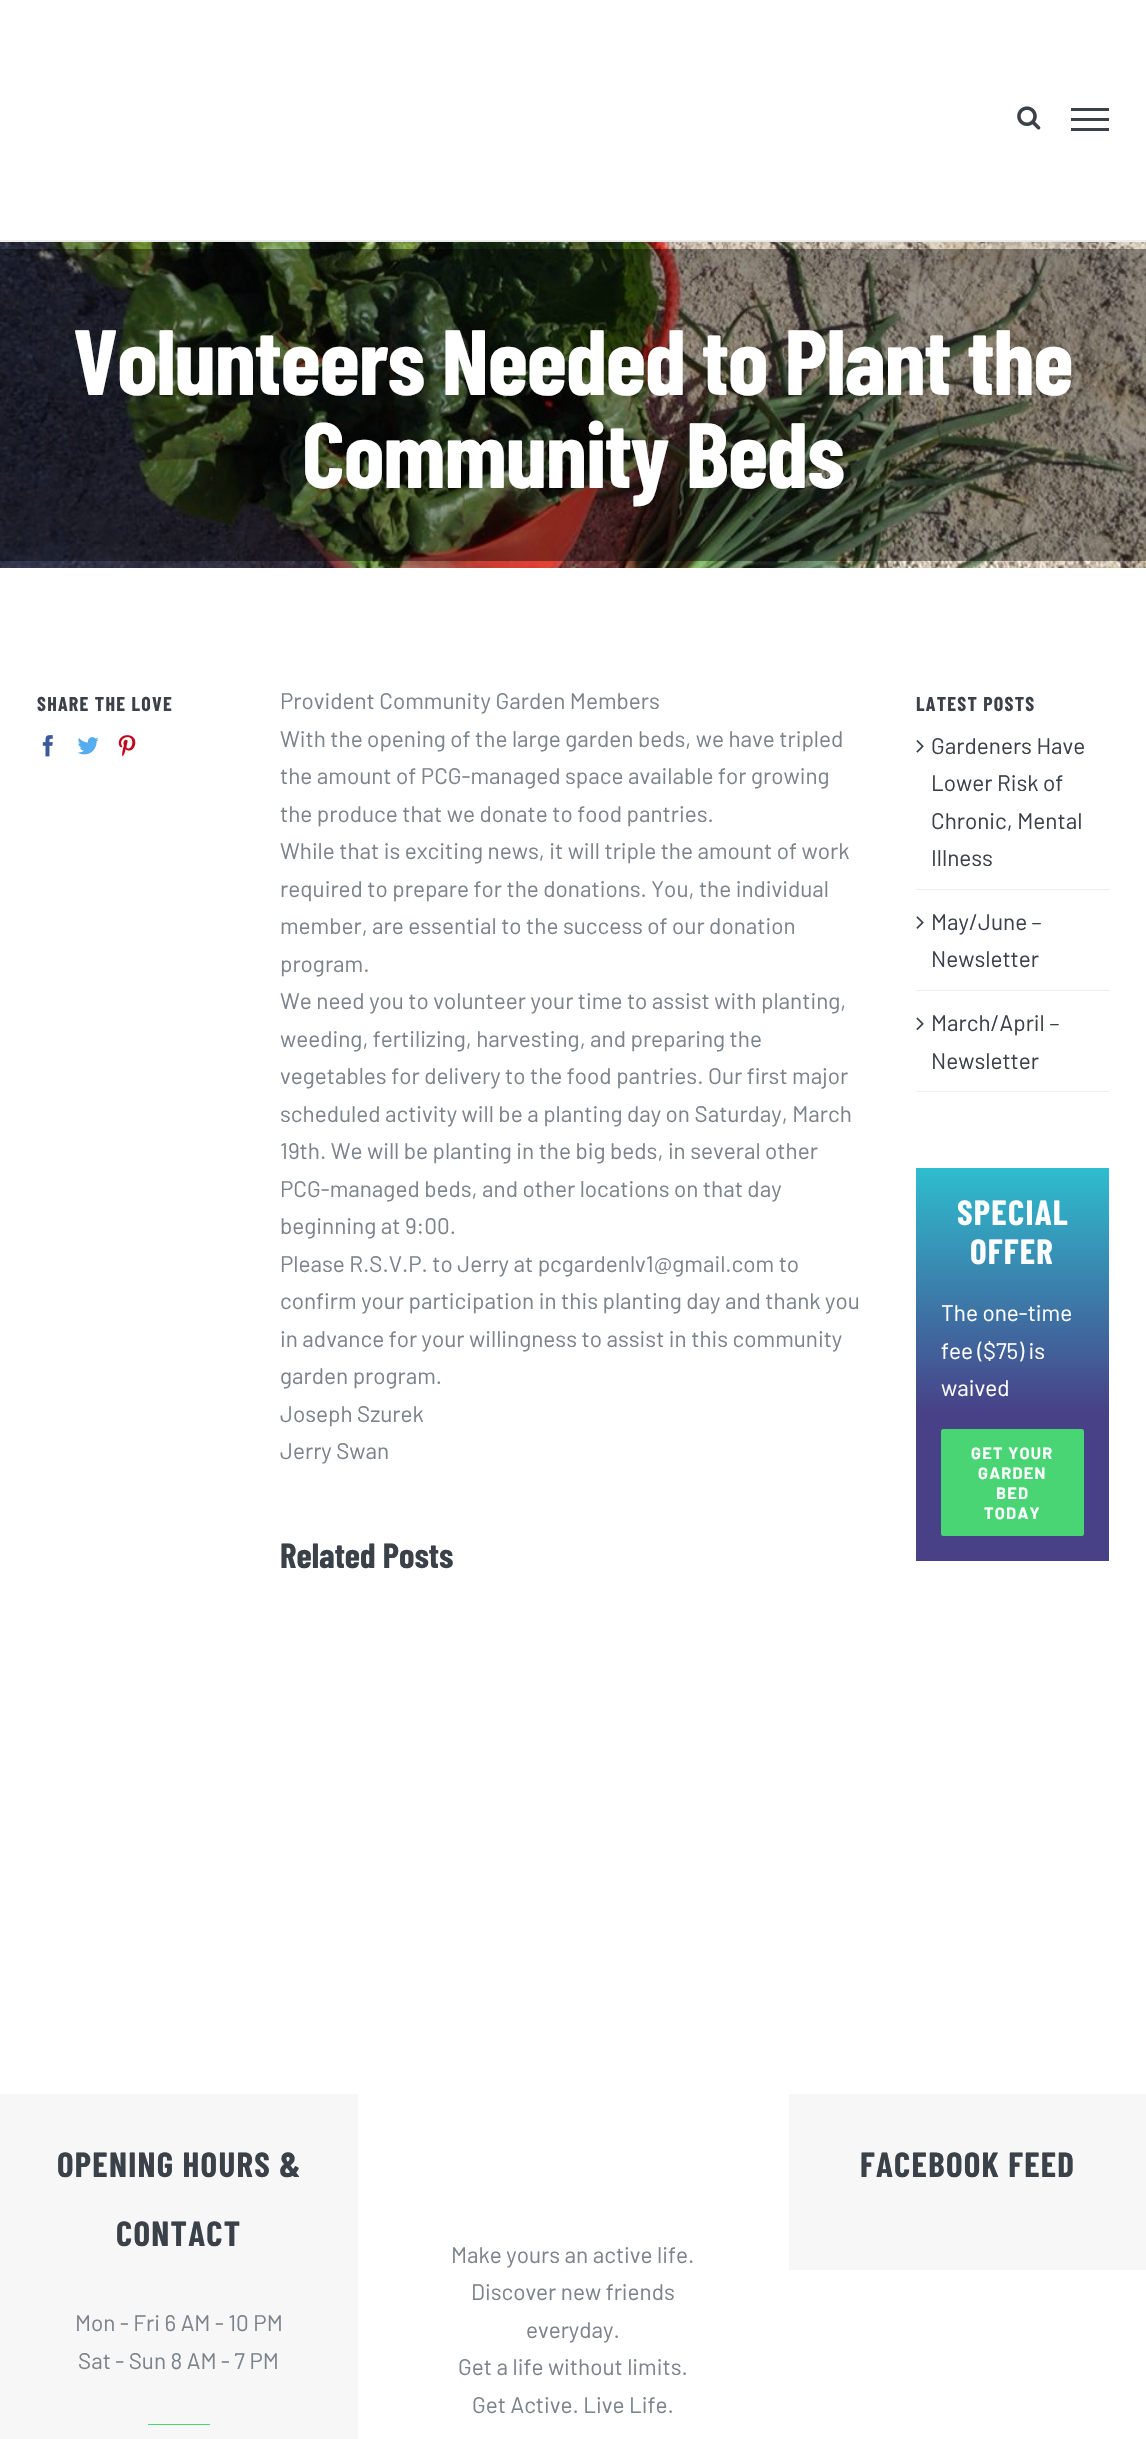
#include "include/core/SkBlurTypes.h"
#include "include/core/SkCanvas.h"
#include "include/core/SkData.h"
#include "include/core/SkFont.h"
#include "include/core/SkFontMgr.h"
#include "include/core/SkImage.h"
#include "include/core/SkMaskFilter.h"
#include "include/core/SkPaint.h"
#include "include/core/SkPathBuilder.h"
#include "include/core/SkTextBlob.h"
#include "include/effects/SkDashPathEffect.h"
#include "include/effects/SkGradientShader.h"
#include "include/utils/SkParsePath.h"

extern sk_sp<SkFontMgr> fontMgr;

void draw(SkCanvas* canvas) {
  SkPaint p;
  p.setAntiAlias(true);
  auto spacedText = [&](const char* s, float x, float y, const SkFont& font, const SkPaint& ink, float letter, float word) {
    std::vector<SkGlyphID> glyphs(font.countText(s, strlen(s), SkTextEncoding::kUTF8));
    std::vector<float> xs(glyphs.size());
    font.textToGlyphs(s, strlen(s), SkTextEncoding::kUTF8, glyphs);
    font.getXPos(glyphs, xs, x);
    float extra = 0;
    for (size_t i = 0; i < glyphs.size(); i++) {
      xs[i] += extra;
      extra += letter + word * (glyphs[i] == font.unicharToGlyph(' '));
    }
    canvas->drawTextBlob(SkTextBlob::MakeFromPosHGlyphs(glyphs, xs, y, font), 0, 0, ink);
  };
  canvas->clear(SK_ColorWHITE);
  canvas->drawImageRect(SkImages::DeferredFromEncodedData(SkData::MakeFromFileName("images/2.png")), SkRect::MakeLTRB(0, 242, 1146, 568), SkSamplingOptions());
  canvas->save();
  canvas->clipRect(SkRect::MakeLTRB(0, 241, 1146, 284));
  p.setColor(SkColorSetARGB(36, 0, 0, 0));
  p.setMaskFilter(SkMaskFilter::MakeBlur(kNormal_SkBlurStyle, 31));
  canvas->drawRect(SkRect::MakeLTRB(3, -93, 1144, 251), p);
  p.setMaskFilter(nullptr);
  canvas->restore();
  p.setColor(SkColorSetRGB(238, 238, 238));
  canvas->drawRect(SkRect::MakeLTRB(0, 240, 1146, 241), p);
  canvas->drawImageRect(SkImages::DeferredFromEncodedData(SkData::MakeFromFileName("images/1.png")), SkRect::MakeLTRB(1017, 106, 1041, 130), SkSamplingOptions());
  p.setColor(SkColorSetRGB(58, 65, 73));
  canvas->drawRect(SkRect::MakeLTRB(1071, 108, 1109, 111), p);
  canvas->drawRect(SkRect::MakeLTRB(1071, 118, 1109, 121), p);
  canvas->drawRect(SkRect::MakeLTRB(1071, 128, 1109, 131), p);
  canvas->drawImageRect(SkImages::DeferredFromEncodedData(SkData::MakeFromFileName("images/3.png")), SkRect::MakeLTRB(42, 735, 53, 757), SkSamplingOptions());
  canvas->drawImageRect(SkImages::DeferredFromEncodedData(SkData::MakeFromFileName("images/4.png")), SkRect::MakeLTRB(77, 737, 99, 755), SkSamplingOptions());
  canvas->drawImageRect(SkImages::DeferredFromEncodedData(SkData::MakeFromFileName("images/5.png")), SkRect::MakeLTRB(118, 735, 136, 757), SkSamplingOptions());
  p.setColor(SkColorSetRGB(238, 238, 238));
  canvas->drawRect(SkRect::MakeLTRB(916, 889, 1109, 890), p);
  canvas->drawImageRect(SkImages::DeferredFromEncodedData(SkData::MakeFromFileName("images/6.png")), SkRect::MakeLTRB(916, 740, 924, 753), SkSamplingOptions());
  canvas->drawRect(SkRect::MakeLTRB(916, 990, 1109, 991), p);
  canvas->drawImageRect(SkImages::DeferredFromEncodedData(SkData::MakeFromFileName("images/7.png")), SkRect::MakeLTRB(916, 916, 924, 929), SkSamplingOptions());
  canvas->drawRect(SkRect::MakeLTRB(916, 1091, 1109, 1092), p);
  canvas->drawImageRect(SkImages::DeferredFromEncodedData(SkData::MakeFromFileName("images/8.png")), SkRect::MakeLTRB(916, 1017, 924, 1030), SkSamplingOptions());
  {
    const SkColor colors[] = {SkColorSetRGB(46, 189, 207), SkColorSetRGB(72, 65, 135)};
    const float stops[] = {0, 0.62f};
    const SkPoint ends[] = {{1013, 1168}, {1013, 1561}};
    p.setShader(SkGradientShader::MakeLinear(ends, colors, stops, 2, SkTileMode::kClamp));
    p.setAlpha(255);
  }
  canvas->drawRect(SkRect::MakeLTRB(916, 1168, 1109, 1561), p);
  p.setShader(nullptr);
  p.setColor(SkColorSetRGB(74, 213, 117));
  canvas->drawRoundRect(SkRect::MakeLTRB(941, 1429, 1084, 1536), 2.5f, 2.5f, p);
  p.setColor(SkColorSetRGB(247, 247, 247));
  canvas->drawRect(SkRect::MakeLTRB(0, 2094, 358, 2439), p);
  p.setColor(SkColorSetRGB(74, 213, 117));
  canvas->drawRect(SkRect::MakeLTRB(148, 2424, 210, 2425), p);
  p.setColor(SkColorSetRGB(247, 247, 247));
  canvas->drawRect(SkRect::MakeLTRB(789, 2094, 1146, 2270), p);
  SkFont font1(fontMgr->matchFamilyStyle("Barlow Condensed", SkFontStyle::Bold()), 92.5f);
  font1.setSubpixel(true);
  p.setColor(SK_ColorWHITE);
  spacedText("Volunteers Needed to Plant the", 73, 395, font1, p, -1.25f, 0);
  spacedText("Community Beds", 302, 488, font1, p, -1.25f, 0);
  SkFont font2(fontMgr->matchFamilyStyle("Barlow Condensed", SkFontStyle::Bold()), 20);
  font2.setSubpixel(true);
  p.setColor(SkColorSetRGB(58, 65, 73));
  spacedText("SHARE THE LOVE", 37, 711, font2, p, 1.25f, 0);
  SkFont font3(fontMgr->matchFamilyStyle("Barlow", SkFontStyle::Normal()), 22.5f);
  font3.setSubpixel(true);
  p.setColor(SkColorSetRGB(123, 131, 139));
  canvas->drawString("Provident Community Garden Members", 280, 709, font3, p);
  canvas->drawString("With the opening of the large garden beds, we have tripled", 280, 747, font3, p);
  canvas->drawString("the amount of PCG-managed space available for growing", 280, 784, font3, p);
  canvas->drawString("the produce that we donate to food pantries.", 280, 822, font3, p);
  canvas->drawString("While that is exciting news, it will triple the amount of work", 280, 859, font3, p);
  canvas->drawString("required to prepare for the donations. You, the individual", 280, 897, font3, p);
  canvas->drawString("member, are essential to the success of our donation", 280, 934, font3, p);
  canvas->drawString("program.", 280, 972, font3, p);
  canvas->drawString("We need you to volunteer your time to assist with planting,", 280, 1009, font3, p);
  canvas->drawString("weeding, fertilizing, harvesting, and preparing the", 280, 1047, font3, p);
  canvas->drawString("vegetables for delivery to the food pantries. Our first major", 280, 1084, font3, p);
  canvas->drawString("scheduled activity will be a planting day on Saturday, March", 280, 1122, font3, p);
  canvas->drawString("19th. We will be planting in the big beds, in several other", 280, 1159, font3, p);
  canvas->drawString("PCG-managed beds, and other locations on that day", 280, 1197, font3, p);
  canvas->drawString("beginning at 9:00.", 280, 1234, font3, p);
  canvas->drawString("Please R.S.V.P. to Jerry at pcgardenlv1@gmail.com to", 280, 1272, font3, p);
  canvas->drawString("confirm your participation in this planting day and thank you", 280, 1309, font3, p);
  canvas->drawString("in advance for your willingness to assist in this community", 280, 1347, font3, p);
  canvas->drawString("garden program.", 280, 1384, font3, p);
  canvas->drawString("Joseph Szurek", 280, 1422, font3, p);
  canvas->drawString("Jerry Swan", 280, 1459, font3, p);
  SkFont font4(fontMgr->matchFamilyStyle("Barlow Condensed", SkFontStyle::Bold()), 35);
  font4.setSubpixel(true);
  p.setColor(SkColorSetRGB(58, 65, 73));
  canvas->drawString("Related Posts", 280, 1568, font4, p);
  spacedText("LATEST POSTS", 916, 711, font2, p, 1.25f, 0);
  canvas->drawString("Gardeners Have", 931, 754, font3, p);
  canvas->drawString("Lower Risk of", 931, 791, font3, p);
  canvas->drawString("Chronic, Mental", 931, 829, font3, p);
  canvas->drawString("Illness", 931, 866, font3, p);
  canvas->drawString("May/June –", 931, 930, font3, p);
  canvas->drawString("Newsletter", 931, 967, font3, p);
  canvas->drawString("March/April –", 931, 1031, font3, p);
  canvas->drawString("Newsletter", 931, 1069, font3, p);
  p.setColor(SK_ColorWHITE);
  spacedText("SPECIAL", 957, 1225, font4, p, 1.25f, 0);
  spacedText("OFFER", 970, 1264, font4, p, 1.25f, 0);
  canvas->drawString("The one-time", 941, 1321, font3, p);
  canvas->drawString("fee ($75) is", 941, 1359, font3, p);
  canvas->drawString("waived", 941, 1396, font3, p);
  SkFont font5(fontMgr->matchFamilyStyle("Barlow", SkFontStyle::Bold()), 16.25f);
  font5.setSubpixel(true);
  spacedText("GET YOUR", 971, 1459, font5, p, 1.25f, 0);
  spacedText("GARDEN", 978, 1479, font5, p, 1.25f, 0);
  spacedText("BED", 996, 1499, font5, p, 1.25f, 0);
  spacedText("TODAY", 984, 1519, font5, p, 1.25f, 0);
  p.setColor(SkColorSetRGB(58, 65, 73));
  spacedText("OPENING HOURS &", 57, 2177, font4, p, 1.25f, 0);
  spacedText("CONTACT", 116, 2246, font4, p, 1.25f, 0);
  p.setColor(SkColorSetRGB(123, 131, 139));
  canvas->drawString("Mon - Fri 6 AM - 10 PM", 75, 2331, font3, p);
  canvas->drawString("Sat - Sun 8 AM - 7 PM", 78, 2369, font3, p);
  p.setColor(SkColorSetRGB(58, 65, 73));
  spacedText("FACEBOOK FEED", 860, 2177, font4, p, 1.25f, 0);
  p.setColor(SkColorSetRGB(123, 131, 139));
  canvas->drawString("Make yours an active life.", 451, 2263, font3, p);
  canvas->drawString("Discover new friends", 471, 2300, font3, p);
  canvas->drawString("everyday.", 526, 2338, font3, p);
  canvas->drawString("Get a life without limits.", 458, 2375, font3, p);
  canvas->drawString("Get Active. Live Life.", 472, 2413, font3, p);
}
